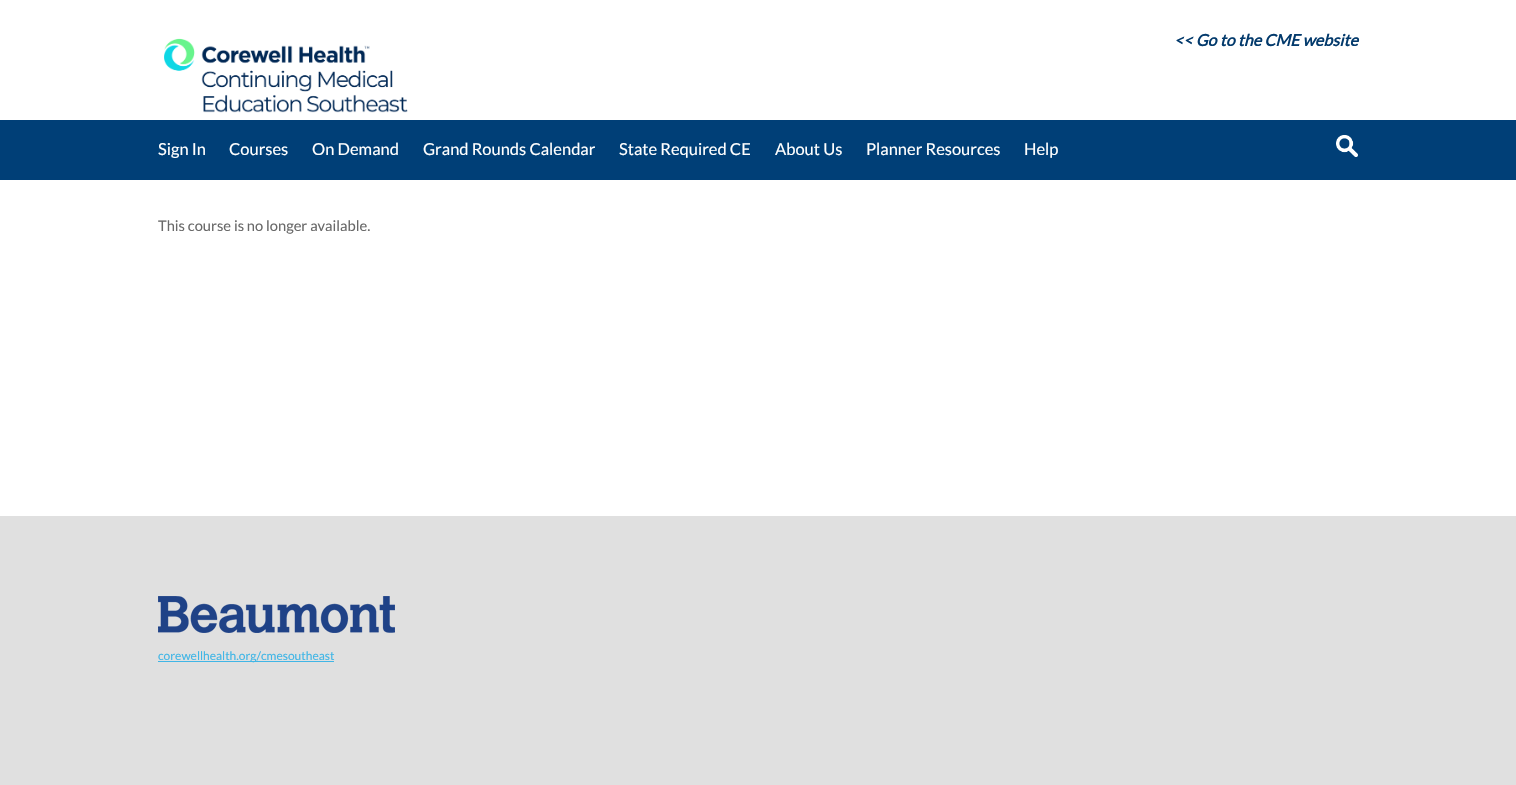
#include "include/core/SkBlurTypes.h"
#include "include/core/SkCanvas.h"
#include "include/core/SkData.h"
#include "include/core/SkFont.h"
#include "include/core/SkFontMgr.h"
#include "include/core/SkImage.h"
#include "include/core/SkMaskFilter.h"
#include "include/core/SkPaint.h"
#include "include/core/SkPathBuilder.h"
#include "include/core/SkTextBlob.h"
#include "include/effects/SkDashPathEffect.h"
#include "include/effects/SkGradientShader.h"
#include "include/utils/SkParsePath.h"

extern sk_sp<SkFontMgr> fontMgr;

void draw(SkCanvas* canvas) {
  SkPaint p;
  p.setAntiAlias(true);
  canvas->clear(SK_ColorWHITE);
  canvas->drawImageRect(SkImages::DeferredFromEncodedData(SkData::MakeFromFileName("images/1.png")), SkRect::MakeLTRB(164, 38, 408, 113), SkSamplingOptions());
  p.setColor(SkColorSetRGB(0, 63, 119));
  canvas->drawRect(SkRect::MakeLTRB(0, 120, 1516, 180), p);
  canvas->drawImageRect(SkImages::DeferredFromEncodedData(SkData::MakeFromFileName("images/2.png")), SkRect::MakeLTRB(1336, 135, 1358, 157), SkSamplingOptions());
  p.setColor(SkColorSetRGB(224, 224, 224));
  canvas->drawRect(SkRect::MakeLTRB(0, 516, 1516, 785), p);
  canvas->drawImageRect(SkImages::DeferredFromEncodedData(SkData::MakeFromFileName("images/3.png")), SkRect::MakeLTRB(158, 596, 395, 633), SkSamplingOptions());
  p.setColor(SkColorSetRGB(65, 182, 230));
  canvas->drawRect(SkRect::MakeLTRB(158, 661, 334, 662), p);
  SkFont font1(fontMgr->matchFamilyStyle("Lato", SkFontStyle::BoldItalic()), 16.1f);
  font1.setSubpixel(true);
  p.setColor(SkColorSetRGB(3, 58, 108));
  canvas->drawString("<< Go to the CME website", 1174, 46, font1, p);
  SkFont font2(fontMgr->matchFamilyStyle("Lato", SkFontStyle::Normal()), 16.5f);
  font2.setSubpixel(true);
  p.setColor(SK_ColorWHITE);
  canvas->drawString("Sign In", 158, 155, font2, p);
  canvas->drawString("Courses", 229, 155, font2, p);
  canvas->drawString("On Demand", 312, 155, font2, p);
  canvas->drawString("Grand Rounds Calendar", 423, 155, font2, p);
  canvas->drawString("State Required CE", 619, 155, font2, p);
  canvas->drawString("About Us", 775, 155, font2, p);
  canvas->drawString("Planner Resources", 866, 155, font2, p);
  canvas->drawString("Help", 1024, 155, font2, p);
  SkFont font3(fontMgr->matchFamilyStyle("Lato", SkFontStyle::Normal()), 14.7f);
  font3.setSubpixel(true);
  p.setColor(SkColorSetRGB(105, 105, 105));
  canvas->drawString("This course is no longer available.", 158, 231, font3, p);
  SkFont font4(fontMgr->matchFamilyStyle("Lato", SkFontStyle::Normal()), 12);
  font4.setSubpixel(true);
  p.setColor(SkColorSetRGB(65, 182, 230));
  canvas->drawString("corewellhealth.org/cmesoutheast", 158, 660, font4, p);
}
